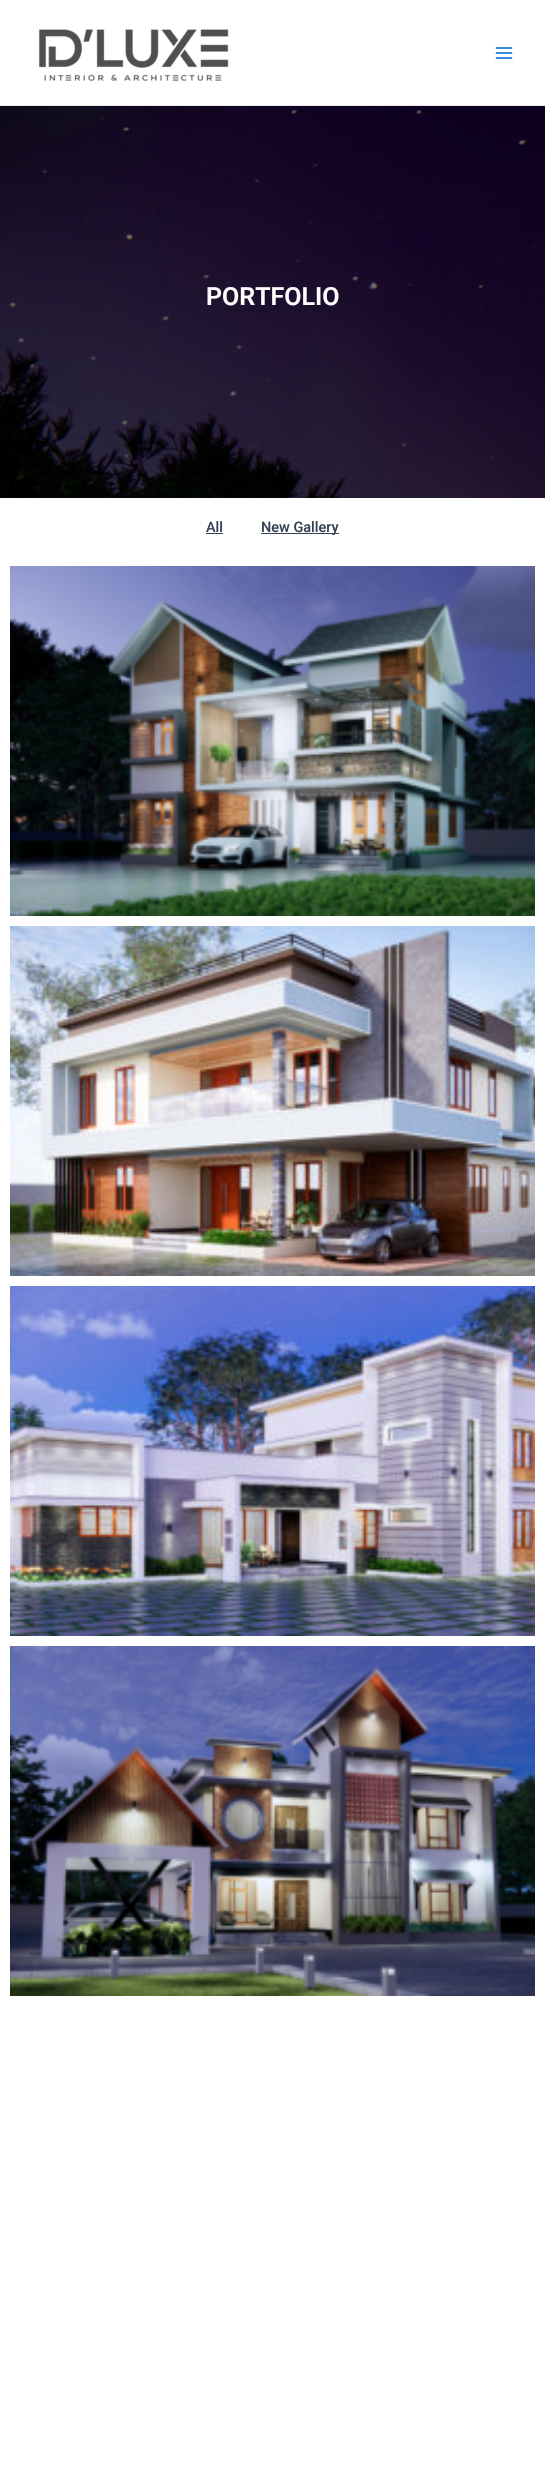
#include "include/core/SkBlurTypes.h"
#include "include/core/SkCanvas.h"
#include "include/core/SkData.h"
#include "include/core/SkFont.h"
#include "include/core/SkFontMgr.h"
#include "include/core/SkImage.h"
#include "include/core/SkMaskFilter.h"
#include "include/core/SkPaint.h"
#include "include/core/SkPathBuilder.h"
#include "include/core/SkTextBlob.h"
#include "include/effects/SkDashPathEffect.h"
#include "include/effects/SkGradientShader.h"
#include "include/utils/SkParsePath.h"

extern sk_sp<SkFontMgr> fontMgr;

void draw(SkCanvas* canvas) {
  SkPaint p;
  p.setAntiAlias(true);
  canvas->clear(SK_ColorWHITE);
  p.setColor(SkColorSetRGB(234, 234, 234));
  canvas->drawRect(SkRect::MakeLTRB(0, 105, 545, 106), p);
  canvas->drawImageRect(SkImages::DeferredFromEncodedData(SkData::MakeFromFileName("images/1.png")), SkRect::MakeLTRB(38, 29, 229, 81), SkSamplingOptions());
  canvas->drawImageRect(SkImages::DeferredFromEncodedData(SkData::MakeFromFileName("images/2.png")), SkRect::MakeLTRB(495, 47, 513, 59), SkSamplingOptions());
  canvas->drawImageRect(SkImages::DeferredFromEncodedData(SkData::MakeFromFileName("images/3.png")), SkRect::MakeLTRB(0, 106, 545, 498), SkSamplingOptions());
  p.setColor(SkColorSetRGB(51, 65, 85));
  canvas->drawRect(SkRect::MakeLTRB(206, 533, 223, 534), p);
  canvas->drawRect(SkRect::MakeLTRB(261, 533, 339, 534), p);
  canvas->drawImageRect(SkImages::DeferredFromEncodedData(SkData::MakeFromFileName("images/4.png")), SkRect::MakeLTRB(10, 566, 535, 916), SkSamplingOptions());
  canvas->drawImageRect(SkImages::DeferredFromEncodedData(SkData::MakeFromFileName("images/5.png")), SkRect::MakeLTRB(10, 926, 535, 1276), SkSamplingOptions());
  canvas->drawImageRect(SkImages::DeferredFromEncodedData(SkData::MakeFromFileName("images/6.png")), SkRect::MakeLTRB(10, 1286, 535, 1636), SkSamplingOptions());
  canvas->drawImageRect(SkImages::DeferredFromEncodedData(SkData::MakeFromFileName("images/7.png")), SkRect::MakeLTRB(10, 1646, 535, 1996), SkSamplingOptions());
  SkFont font1(fontMgr->matchFamilyStyle("Roboto", SkFontStyle(600, SkFontStyle::kNormal_Width, SkFontStyle::kUpright_Slant)), 25);
  font1.setSubpixel(true);
  p.setColor(SK_ColorWHITE);
  canvas->drawString("PORTFOLIO", 206, 305, font1, p);
  SkFont font2(fontMgr->matchFamilyStyle("Roboto", SkFontStyle(500, SkFontStyle::kNormal_Width, SkFontStyle::kUpright_Slant)), 14.5f);
  font2.setSubpixel(true);
  p.setColor(SkColorSetRGB(51, 65, 85));
  canvas->drawString("All", 206, 532, font2, p);
  canvas->drawString("New Gallery", 261, 532, font2, p);
}
